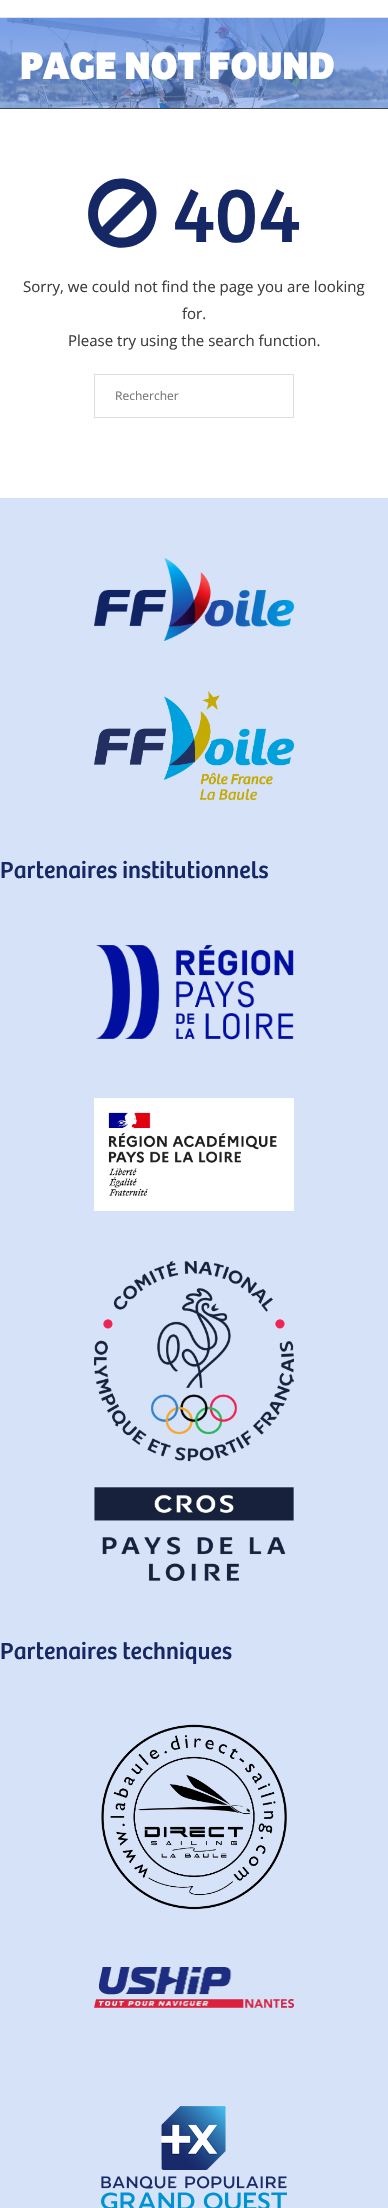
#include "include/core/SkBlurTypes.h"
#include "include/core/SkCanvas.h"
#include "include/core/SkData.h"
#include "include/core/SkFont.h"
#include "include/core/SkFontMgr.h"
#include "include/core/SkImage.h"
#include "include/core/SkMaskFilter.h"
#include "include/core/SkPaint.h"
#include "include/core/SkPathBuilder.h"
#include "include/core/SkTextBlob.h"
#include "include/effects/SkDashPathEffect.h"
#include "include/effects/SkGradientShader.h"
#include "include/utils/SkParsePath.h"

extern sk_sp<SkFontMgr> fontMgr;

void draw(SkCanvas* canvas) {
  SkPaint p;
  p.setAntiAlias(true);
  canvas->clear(SK_ColorWHITE);
  p.setColor(SkColorSetRGB(227, 227, 227));
  canvas->drawRect(SkRect::MakeLTRB(0, 17, 388, 18), p);
  canvas->drawImageRect(SkImages::DeferredFromEncodedData(SkData::MakeFromFileName("images/1.png")), SkRect::MakeLTRB(0, 18, 388, 108), SkSamplingOptions());
  p.setColor(SkColorSetRGB(69, 69, 69));
  canvas->drawRect(SkRect::MakeLTRB(0, 108, 388, 109), p);
  p.setColor(SkColorSetRGB(22, 39, 101));
  canvas->drawPath(SkPathBuilder().moveTo(147, 213).cubicTo(147, 209, 145, 204, 143, 200).lineTo(109, 234).cubicTo(125, 244, 147, 232, 147, 213).close().moveTo(102, 227).lineTo(136, 193).cubicTo(114, 178, 88, 205, 102, 227).close().moveTo(154, 200).cubicTo(161, 217, 153, 238, 136, 245).cubicTo(128, 248, 119, 249, 111, 246).cubicTo(72, 231, 87, 173, 127, 179).cubicTo(139, 181, 149, 189, 154, 200).close().detach(), p);
  p.setStyle(SkPaint::kStroke_Style);
  p.setStrokeWidth(1);
  p.setColor(SkColorSetRGB(221, 221, 221));
  canvas->drawRect(SkRect::MakeLTRB(94.5f, 374.5f, 293.5f, 417.5f), p);
  p.setStyle(SkPaint::kFill_Style);
  p.setColor(SkColorSetRGB(214, 226, 248));
  canvas->drawRect(SkRect::MakeLTRB(0, 498, 388, 2208), p);
  canvas->drawImageRect(SkImages::DeferredFromEncodedData(SkData::MakeFromFileName("images/2.png")), SkRect::MakeLTRB(94, 558, 294, 641), SkSamplingOptions());
  canvas->drawImageRect(SkImages::DeferredFromEncodedData(SkData::MakeFromFileName("images/3.png")), SkRect::MakeLTRB(94, 691, 294, 800), SkSamplingOptions());
  canvas->drawImageRect(SkImages::DeferredFromEncodedData(SkData::MakeFromFileName("images/4.png")), SkRect::MakeLTRB(95, 945, 294, 1040), SkSamplingOptions());
  canvas->drawImageRect(SkImages::DeferredFromEncodedData(SkData::MakeFromFileName("images/5.png")), SkRect::MakeLTRB(94, 1098, 294, 1211), SkSamplingOptions());
  canvas->drawImageRect(SkImages::DeferredFromEncodedData(SkData::MakeFromFileName("images/6.png")), SkRect::MakeLTRB(94, 1261, 294, 1581), SkSamplingOptions());
  canvas->drawImageRect(SkImages::DeferredFromEncodedData(SkData::MakeFromFileName("images/7.png")), SkRect::MakeLTRB(101, 1724, 287, 1910), SkSamplingOptions());
  canvas->drawImageRect(SkImages::DeferredFromEncodedData(SkData::MakeFromFileName("images/8.png")), SkRect::MakeLTRB(94, 1967, 294, 2008), SkSamplingOptions());
  canvas->drawImageRect(SkImages::DeferredFromEncodedData(SkData::MakeFromFileName("images/9.png")), SkRect::MakeLTRB(101, 2106, 287, 2208), SkSamplingOptions());
  SkFont font1(fontMgr->matchFamilyStyle("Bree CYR", SkFontStyle(800, SkFontStyle::kNormal_Width, SkFontStyle::kUpright_Slant)), 40);
  font1.setSubpixel(true);
  p.setColor(SK_ColorWHITE);
  canvas->drawString("PAGE NOT FOUND", 20, 79, font1, p);
  SkFont font2(fontMgr->matchFamilyStyle("Bree CYR", SkFontStyle::Normal()), 80);
  font2.setSubpixel(true);
  p.setColor(SkColorSetRGB(22, 39, 101));
  canvas->drawString("404", 172, 242, font2, p);
  SkFont font3(fontMgr->matchFamilyStyle("Open Sans", SkFontStyle::Normal()), 15);
  font3.setSubpixel(true);
  p.setColor(SkColorSetRGB(61, 61, 61));
  canvas->drawString("Sorry, we could not find the page you are looking", 23, 292, font3, p);
  canvas->drawString("for.", 182, 319, font3, p);
  canvas->drawString("Please try using the search function.", 68, 346, font3, p);
  SkFont font4(fontMgr->matchFamilyStyle("Open Sans", SkFontStyle::Normal()), 12);
  font4.setSubpixel(true);
  p.setColor(SkColorSetRGB(117, 117, 117));
  canvas->drawString("Rechercher", 115, 400, font4, p);
  SkFont font5(fontMgr->matchFamilyStyle("Bree CYR", SkFontStyle::Normal()), 24);
  font5.setSubpixel(true);
  p.setColor(SkColorSetRGB(22, 39, 101));
  canvas->drawString("Partenaires institutionnels", 0, 878, font5, p);
  canvas->drawString("Partenaires techniques", 0, 1659, font5, p);
}
